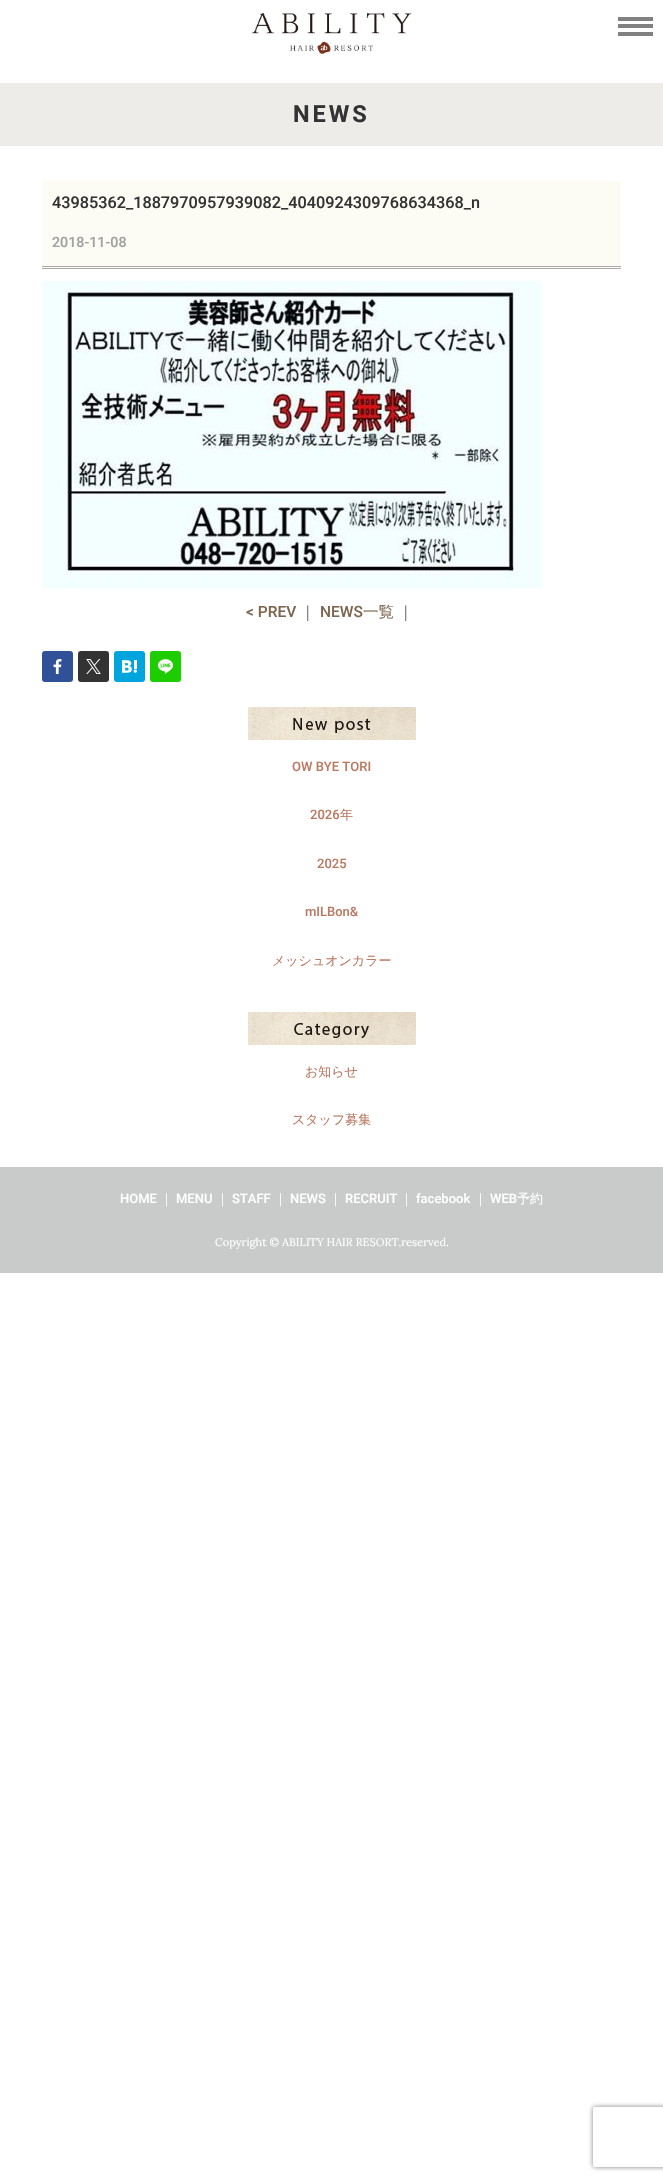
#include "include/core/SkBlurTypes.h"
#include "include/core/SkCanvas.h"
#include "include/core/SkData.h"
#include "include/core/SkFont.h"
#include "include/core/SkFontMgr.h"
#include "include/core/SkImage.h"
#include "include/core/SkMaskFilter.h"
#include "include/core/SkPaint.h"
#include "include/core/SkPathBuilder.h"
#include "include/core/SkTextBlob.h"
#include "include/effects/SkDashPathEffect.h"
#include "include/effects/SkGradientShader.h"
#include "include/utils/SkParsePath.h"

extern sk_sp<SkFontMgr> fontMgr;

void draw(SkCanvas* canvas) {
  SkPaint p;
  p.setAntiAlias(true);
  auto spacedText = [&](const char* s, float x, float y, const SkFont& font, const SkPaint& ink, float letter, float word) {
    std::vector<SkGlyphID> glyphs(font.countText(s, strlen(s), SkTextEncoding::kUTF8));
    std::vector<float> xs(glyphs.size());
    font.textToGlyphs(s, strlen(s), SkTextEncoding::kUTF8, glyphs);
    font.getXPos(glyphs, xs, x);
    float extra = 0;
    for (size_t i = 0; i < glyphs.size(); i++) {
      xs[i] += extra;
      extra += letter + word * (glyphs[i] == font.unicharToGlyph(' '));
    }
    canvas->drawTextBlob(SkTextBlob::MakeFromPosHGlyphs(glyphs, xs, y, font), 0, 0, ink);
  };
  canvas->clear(SK_ColorWHITE);
  canvas->drawImageRect(SkImages::DeferredFromEncodedData(SkData::MakeFromFileName("images/1.png")), SkRect::MakeLTRB(252, 13, 412, 54), SkSamplingOptions());
  canvas->drawImageRect(SkImages::DeferredFromEncodedData(SkData::MakeFromFileName("images/2.png")), SkRect::MakeLTRB(618, 17, 653, 36), SkSamplingOptions());
  p.setColor(SkColorSetRGB(238, 236, 233));
  canvas->drawRect(SkRect::MakeLTRB(0, 83, 663, 146), p);
  p.setColor(SkColorSetRGB(253, 252, 244));
  canvas->drawRect(SkRect::MakeLTRB(42, 181, 621, 268), p);
  p.setColor(SkColorSetRGB(170, 170, 170));
  canvas->drawRect(SkRect::MakeLTRB(42, 266, 621, 267), p);
  canvas->drawRect(SkRect::MakeLTRB(42, 268, 621, 269), p);
  canvas->drawImageRect(SkImages::DeferredFromEncodedData(SkData::MakeFromFileName("images/3.png")), SkRect::MakeLTRB(42, 281, 542, 588), SkSamplingOptions());
  p.setColor(SkColorSetRGB(48, 80, 151));
  canvas->drawRoundRect(SkRect::MakeLTRB(42, 651, 73, 682), 3, 3, p);
  canvas->drawImageRect(SkImages::DeferredFromEncodedData(SkData::MakeFromFileName("images/4.png")), SkRect::MakeLTRB(53, 659, 62, 674), SkSamplingOptions());
  p.setColor(SkColorSetRGB(51, 51, 51));
  canvas->drawRoundRect(SkRect::MakeLTRB(78, 651, 109, 682), 3, 3, p);
  canvas->drawImageRect(SkImages::DeferredFromEncodedData(SkData::MakeFromFileName("images/5.png")), SkRect::MakeLTRB(86, 659, 101, 674), SkSamplingOptions());
  p.setColor(SkColorSetRGB(0, 165, 222));
  canvas->drawRoundRect(SkRect::MakeLTRB(114, 651, 145, 682), 3, 3, p);
  canvas->drawImageRect(SkImages::DeferredFromEncodedData(SkData::MakeFromFileName("images/6.png")), SkRect::MakeLTRB(122, 660, 137, 673), SkSamplingOptions());
  p.setColor(SkColorSetRGB(29, 205, 0));
  canvas->drawRoundRect(SkRect::MakeLTRB(150, 651, 181, 682), 3, 3, p);
  canvas->drawImageRect(SkImages::DeferredFromEncodedData(SkData::MakeFromFileName("images/7.png")), SkRect::MakeLTRB(158, 659, 173, 674), SkSamplingOptions());
  canvas->drawImageRect(SkImages::DeferredFromEncodedData(SkData::MakeFromFileName("images/8.png")), SkRect::MakeLTRB(248, 707, 416, 740), SkSamplingOptions());
  canvas->drawImageRect(SkImages::DeferredFromEncodedData(SkData::MakeFromFileName("images/9.png")), SkRect::MakeLTRB(248, 1012, 416, 1045), SkSamplingOptions());
  p.setColor(SkColorSetRGB(201, 202, 202));
  canvas->drawRect(SkRect::MakeLTRB(0, 1167, 663, 1273), p);
  canvas->save();
  canvas->clipPath(SkPathBuilder(SkPathFillType::kEvenOdd).moveTo(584, 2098).lineTo(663, 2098).lineTo(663, 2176).lineTo(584, 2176).close().moveTo(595, 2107).lineTo(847, 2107).cubicTo(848, 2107, 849, 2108, 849, 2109).lineTo(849, 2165).cubicTo(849, 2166, 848, 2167, 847, 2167).lineTo(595, 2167).cubicTo(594, 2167, 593, 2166, 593, 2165).lineTo(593, 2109).cubicTo(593, 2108, 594, 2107, 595, 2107).close().detach(), true);
  p.setColor(SkColorSetRGB(128, 128, 128));
  p.setMaskFilter(SkMaskFilter::MakeBlur(kNormal_SkBlurStyle, 2.5f));
  canvas->drawRoundRect(SkRect::MakeLTRB(593, 2107, 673, 2167), 2, 2, p);
  p.setMaskFilter(nullptr);
  canvas->restore();
  SkFont font1(fontMgr->matchFamilyStyle("Roboto", SkFontStyle::Bold()), 23.5f);
  font1.setSubpixel(true);
  p.setColor(SkColorSetRGB(51, 51, 51));
  spacedText("NEWS", 293, 122, font1, p, 3, 0);
  SkFont font2(fontMgr->matchFamilyStyle("Roboto", SkFontStyle(500, SkFontStyle::kNormal_Width, SkFontStyle::kUpright_Slant)), 16.25f);
  font2.setSubpixel(true);
  canvas->drawString("43985362_1887970957939082_4040924309768634368_n", 52, 208, font2, p);
  SkFont font3(fontMgr->matchFamilyStyle("Roboto", SkFontStyle(500, SkFontStyle::kNormal_Width, SkFontStyle::kUpright_Slant)), 14.25f);
  font3.setSubpixel(true);
  p.setColor(SkColorSetRGB(159, 160, 160));
  canvas->drawString("2018-11-08", 52, 247, font3, p);
  SkFont font4(fontMgr->matchFamilyStyle("Roboto", SkFontStyle(500, SkFontStyle::kNormal_Width, SkFontStyle::kUpright_Slant)), 15.5f);
  font4.setSubpixel(true);
  p.setColor(SkColorSetRGB(125, 101, 78));
  canvas->drawString("< PREV", 246, 617, font4, p);
  SkFont font5(fontMgr->matchFamilyStyle("WenQuanYi Zen Hei", SkFontStyle(500, SkFontStyle::kNormal_Width, SkFontStyle::kUpright_Slant)), 15.5f);
  font5.setSubpixel(true);
  p.setColor(SkColorSetRGB(102, 102, 102));
  canvas->drawString("｜", 300, 617, font5, p);
  p.setColor(SkColorSetRGB(125, 101, 78));
  canvas->drawString("NEWS", 320, 617, font4, p);
  canvas->drawString("一覧", 363, 617, font5, p);
  p.setColor(SkColorSetRGB(102, 102, 102));
  canvas->drawString("｜", 398, 617, font5, p);
  SkFont font6(fontMgr->matchFamilyStyle("Roboto", SkFontStyle(500, SkFontStyle::kNormal_Width, SkFontStyle::kUpright_Slant)), 13);
  font6.setSubpixel(true);
  p.setColor(SkColorSetRGB(186, 121, 98));
  canvas->drawString("OW BYE TORI", 292, 771, font6, p);
  canvas->drawString("2026", 310, 819, font6, p);
  SkFont font7(fontMgr->matchFamilyStyle("WenQuanYi Zen Hei", SkFontStyle(500, SkFontStyle::kNormal_Width, SkFontStyle::kUpright_Slant)), 13);
  font7.setSubpixel(true);
  canvas->drawString("年", 340, 819, font7, p);
  canvas->drawString("2025", 317, 868, font6, p);
  canvas->drawString("mILBon&", 305, 916, font6, p);
  canvas->drawString("メッシュオンカラー", 272, 965, font7, p);
  canvas->drawString("お知らせ", 305, 1076, font7, p);
  canvas->drawString("スタッフ募集", 292, 1124, font7, p);
  p.setColor(SK_ColorWHITE);
  canvas->drawString("HOME", 120, 1203, font6, p);
  canvas->drawString("｜", 160, 1203, font7, p);
  canvas->drawString("MENU", 176, 1203, font6, p);
  canvas->drawString("｜", 216, 1203, font7, p);
  canvas->drawString("STAFF", 232, 1203, font6, p);
  canvas->drawString("｜", 274, 1203, font7, p);
  canvas->drawString("NEWS", 290, 1203, font6, p);
  canvas->drawString("｜", 329, 1203, font7, p);
  canvas->drawString("RECRUIT", 345, 1203, font6, p);
  canvas->drawString("｜", 400, 1203, font7, p);
  canvas->drawString("facebook", 416, 1203, font6, p);
  canvas->drawString("｜", 474, 1203, font7, p);
  canvas->drawString("WEB", 490, 1203, font6, p);
  canvas->drawString("予約", 517, 1203, font7, p);
  SkFont font8(fontMgr->matchFamilyStyle("Lora", SkFontStyle::Normal()), 11.05f);
  font8.setSubpixel(true);
  canvas->drawString("Copyright © ABILITY HAIR RESORT.reserved.", 215, 1246, font8, p);
}
